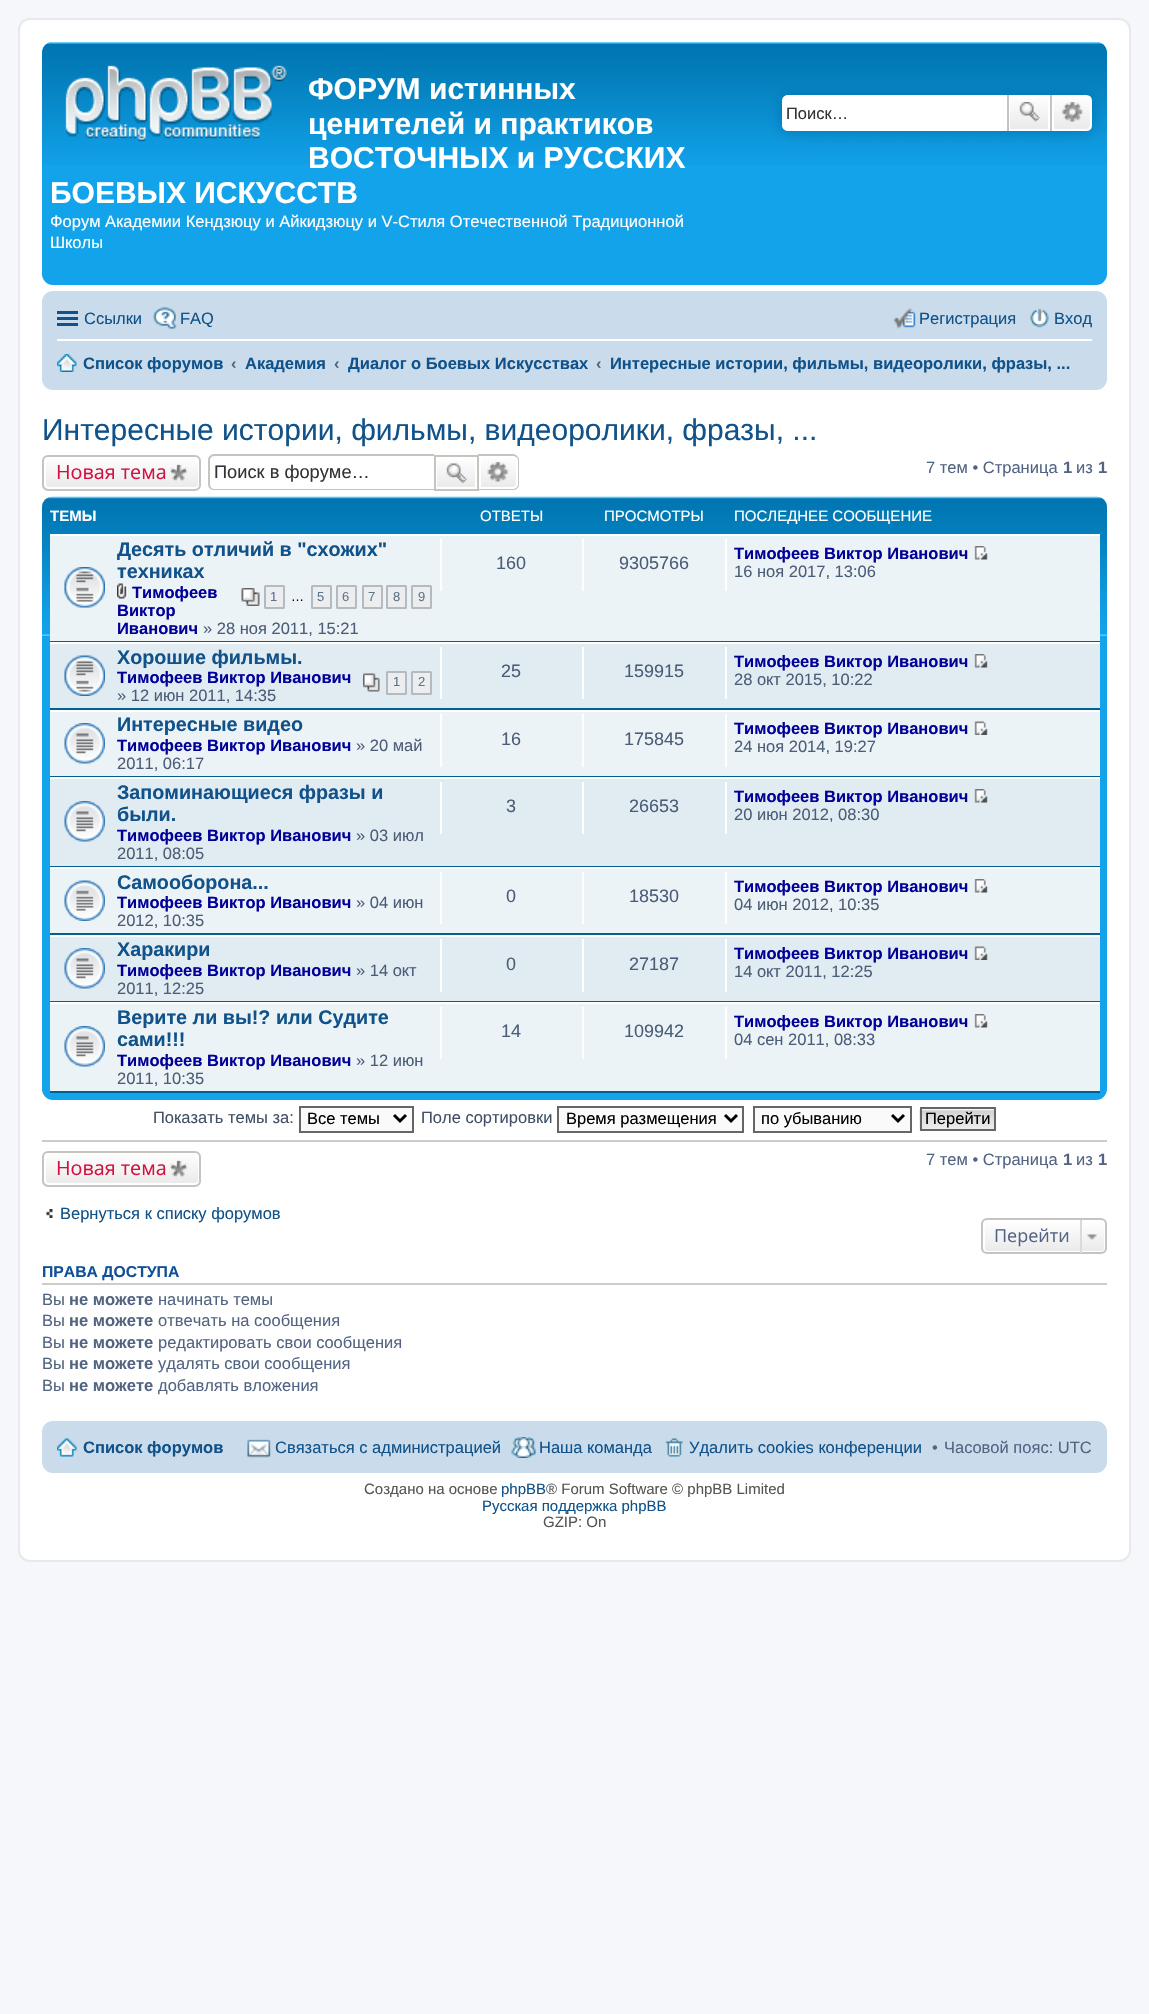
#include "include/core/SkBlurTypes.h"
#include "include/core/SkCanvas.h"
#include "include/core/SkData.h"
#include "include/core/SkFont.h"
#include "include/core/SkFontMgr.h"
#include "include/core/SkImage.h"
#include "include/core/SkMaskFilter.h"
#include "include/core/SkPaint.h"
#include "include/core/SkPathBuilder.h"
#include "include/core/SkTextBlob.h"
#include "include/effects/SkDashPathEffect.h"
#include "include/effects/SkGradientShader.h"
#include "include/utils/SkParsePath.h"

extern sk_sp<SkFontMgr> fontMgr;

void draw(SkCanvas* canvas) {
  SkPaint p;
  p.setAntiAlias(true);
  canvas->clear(SkColorSetRGB(245, 247, 250));
  p.setColor(SK_ColorWHITE);
  canvas->drawRoundRect(SkRect::MakeLTRB(19, 19, 1130, 1561), 11, 11, p);
  p.setStyle(SkPaint::kStroke_Style);
  p.setStrokeWidth(2);
  p.setColor(SkColorSetRGB(230, 233, 237));
  canvas->drawRoundRect(SkRect::MakeLTRB(19, 19, 1130, 1561), 11, 11, p);
  p.setStyle(SkPaint::kFill_Style);
  p.setColor(SkColorSetRGB(18, 163, 235));
  canvas->drawRoundRect(SkRect::MakeLTRB(42, 42, 1107, 285), 11, 11, p);
  canvas->drawImageRect(SkImages::DeferredFromEncodedData(SkData::MakeFromFileName("images/1.png")), SkRect::MakeLTRB(42, 42, 1107, 165), SkSamplingOptions());
  canvas->drawImageRect(SkImages::DeferredFromEncodedData(SkData::MakeFromFileName("images/2.png")), SkRect::MakeLTRB(65, 65, 287, 142), SkSamplingOptions());
  p.setColor(SkColorSetRGB(0, 117, 176));
  p.setMaskFilter(SkMaskFilter::MakeBlur(kNormal_SkBlurStyle, 7.5f));
  canvas->drawRoundRect(SkRect::MakeLTRB(782, 95, 1092, 131), 6, 6, p);
  p.setMaskFilter(nullptr);
  p.setColor(SK_ColorWHITE);
  canvas->drawPath(SkPathBuilder().moveTo(788, 95).lineTo(1007, 95).lineTo(1007, 131).lineTo(788, 131).cubicTo(784.5f, 131, 782, 128.5f, 782, 125).lineTo(782, 101).cubicTo(782, 97.5f, 784.5f, 95, 788, 95).close().detach(), p);
  {
    const SkColor colors[] = {SK_ColorWHITE, SkColorSetRGB(233, 233, 233)};
    const float stops[] = {0, 1};
    const SkPoint ends[] = {{1029, 95}, {1029, 131}};
    p.setShader(SkGradientShader::MakeLinear(ends, colors, stops, 2, SkTileMode::kClamp));
    p.setAlpha(255);
  }
  canvas->drawRect(SkRect::MakeLTRB(1010, 97, 1048, 129), p);
  p.setStyle(SkPaint::kStroke_Style);
  p.setShader(nullptr);
  p.setColor(SK_ColorWHITE);
  canvas->drawRect(SkRect::MakeLTRB(1009, 96, 1049, 130), p);
  p.setStyle(SkPaint::kFill_Style);
  p.setColor(SkColorSetRGB(199, 195, 191));
  canvas->drawRect(SkRect::MakeLTRB(1050, 95, 1052, 131), p);
  canvas->drawRect(SkRect::MakeLTRB(1007, 95, 1009, 131), p);
  canvas->drawImageRect(SkImages::DeferredFromEncodedData(SkData::MakeFromFileName("images/3.png")), SkRect::MakeLTRB(1019, 102, 1040, 122), SkSamplingOptions());
  {
    const SkColor colors[] = {SK_ColorWHITE, SkColorSetRGB(233, 233, 233)};
    const float stops[] = {0, 1};
    const SkPoint ends[] = {{1072, 95}, {1072, 131}};
    p.setShader(SkGradientShader::MakeLinear(ends, colors, stops, 2, SkTileMode::kClamp));
    p.setAlpha(255);
  }
  canvas->drawPath(SkPathBuilder().moveTo(1053, 96).lineTo(1086, 96).cubicTo(1089, 96, 1091, 98, 1091, 101).lineTo(1091, 125).cubicTo(1091, 128, 1089, 130, 1086, 130).lineTo(1053, 130).close().detach(), p);
  p.setStyle(SkPaint::kStroke_Style);
  p.setShader(nullptr);
  p.setColor(SK_ColorWHITE);
  canvas->drawPath(SkPathBuilder().moveTo(1053, 96).lineTo(1086, 96).cubicTo(1089, 96, 1091, 98, 1091, 101).lineTo(1091, 125).cubicTo(1091, 128, 1089, 130, 1086, 130).lineTo(1053, 130).close().detach(), p);
  canvas->drawImageRect(SkImages::DeferredFromEncodedData(SkData::MakeFromFileName("images/4.png")), SkRect::MakeLTRB(1061, 102, 1084, 122), SkSamplingOptions());
  p.setStyle(SkPaint::kFill_Style);
  p.setColor(SkColorSetRGB(202, 220, 235));
  canvas->drawRoundRect(SkRect::MakeLTRB(42, 291, 1107, 390), 11, 11, p);
  p.setColor(SkColorSetRGB(16, 82, 137));
  canvas->drawRect(SkRect::MakeLTRB(57, 311, 78, 314), p);
  canvas->drawRect(SkRect::MakeLTRB(57, 317, 78, 320), p);
  canvas->drawRect(SkRect::MakeLTRB(57, 323, 78, 326), p);
  canvas->drawImageRect(SkImages::DeferredFromEncodedData(SkData::MakeFromFileName("images/5.png")), SkRect::MakeLTRB(153, 307, 177, 329), SkSamplingOptions());
  canvas->drawImageRect(SkImages::DeferredFromEncodedData(SkData::MakeFromFileName("images/6.png")), SkRect::MakeLTRB(893, 308, 916, 329), SkSamplingOptions());
  canvas->drawImageRect(SkImages::DeferredFromEncodedData(SkData::MakeFromFileName("images/7.png")), SkRect::MakeLTRB(1030, 308, 1049, 328), SkSamplingOptions());
  p.setColor(SK_ColorWHITE);
  canvas->drawRect(SkRect::MakeLTRB(57, 339, 1092, 341), p);
  canvas->drawImageRect(SkImages::DeferredFromEncodedData(SkData::MakeFromFileName("images/8.png")), SkRect::MakeLTRB(57, 354, 77, 372), SkSamplingOptions());
  canvas->save();
  canvas->clipPath(SkPathBuilder().moveTo(48, 455).lineTo(195, 455).cubicTo(198.5f, 455, 201, 457.5f, 201, 461).lineTo(201, 485).cubicTo(201, 488.5f, 198.5f, 491, 195, 491).lineTo(48, 491).cubicTo(44.5f, 491, 42, 488.5f, 42, 485).lineTo(42, 461).cubicTo(42, 457.5f, 44.5f, 455, 48, 455).close().detach(), true);
  {
    const SkColor colors[] = {SK_ColorWHITE, SkColorSetRGB(233, 233, 233)};
    const float stops[] = {0, 1};
    const SkPoint ends[] = {{122, 456}, {122, 489}};
    p.setShader(SkGradientShader::MakeLinear(ends, colors, stops, 2, SkTileMode::kClamp));
    p.setAlpha(255);
  }
  canvas->drawRect(SkRect::MakeLTRB(42, 456, 201, 489), p);
  canvas->restore();
  p.setStyle(SkPaint::kStroke_Style);
  p.setShader(nullptr);
  p.setColor(SK_ColorWHITE);
  canvas->drawRoundRect(SkRect::MakeLTRB(45, 457, 199, 488), 4, 4, p);
  p.setColor(SkColorSetRGB(199, 195, 191));
  canvas->drawRoundRect(SkRect::MakeLTRB(43, 456, 200, 490), 5, 5, p);
  canvas->drawImageRect(SkImages::DeferredFromEncodedData(SkData::MakeFromFileName("images/9.png")), SkRect::MakeLTRB(170, 464, 188, 482), SkSamplingOptions());
  p.setStyle(SkPaint::kFill_Style);
  canvas->drawPath(SkPathBuilder(SkPathFillType::kEvenOdd).moveTo(214, 454).lineTo(434, 454).lineTo(434, 490).lineTo(214, 490).cubicTo(211, 490, 208, 488, 208, 484).lineTo(208, 460).cubicTo(208, 457, 211, 454, 214, 454).close().moveTo(214, 456).lineTo(434, 456).lineTo(434, 489).lineTo(214, 489).cubicTo(212, 489, 210, 487, 210, 484).lineTo(210, 460).cubicTo(210, 458, 212, 456, 214, 456).close().detach(), p);
  {
    const SkColor colors[] = {SK_ColorWHITE, SkColorSetRGB(233, 233, 233)};
    const float stops[] = {0, 1};
    const SkPoint ends[] = {{456, 456}, {456, 489}};
    p.setShader(SkGradientShader::MakeLinear(ends, colors, stops, 2, SkTileMode::kClamp));
    p.setAlpha(255);
  }
  canvas->drawRect(SkRect::MakeLTRB(437, 460, 475, 487), p);
  p.setStyle(SkPaint::kStroke_Style);
  p.setShader(nullptr);
  p.setColor(SkColorSetRGB(199, 195, 191));
  canvas->drawRect(SkRect::MakeLTRB(435, 456, 478, 490), p);
  canvas->drawImageRect(SkImages::DeferredFromEncodedData(SkData::MakeFromFileName("images/10.png")), SkRect::MakeLTRB(446, 463, 467, 484), SkSamplingOptions());
  p.setStyle(SkPaint::kFill_Style);
  {
    const SkColor colors[] = {SK_ColorWHITE, SkColorSetRGB(233, 233, 233)};
    const float stops[] = {0, 1};
    const SkPoint ends[] = {{498, 456}, {498, 489}};
    p.setShader(SkGradientShader::MakeLinear(ends, colors, stops, 2, SkTileMode::kClamp));
    p.setAlpha(255);
  }
  canvas->drawPath(SkPathBuilder().moveTo(480, 457).lineTo(513, 457).cubicTo(515, 457, 517, 459, 517, 461).lineTo(517, 484).cubicTo(517, 486, 515, 488, 513, 488).lineTo(480, 488).close().detach(), p);
  p.setStyle(SkPaint::kStroke_Style);
  p.setShader(nullptr);
  p.setColor(SK_ColorWHITE);
  canvas->drawPath(SkPathBuilder().moveTo(480, 457).lineTo(513, 457).cubicTo(515, 457, 517, 459, 517, 461).lineTo(517, 484).cubicTo(517, 486, 515, 488, 513, 488).lineTo(480, 488).close().detach(), p);
  p.setStyle(SkPaint::kFill_Style);
  p.setColor(SkColorSetRGB(199, 195, 191));
  canvas->drawPath(SkPathBuilder(SkPathFillType::kEvenOdd).moveTo(478, 454).lineTo(513, 454).cubicTo(516, 454, 519, 457, 519, 460).lineTo(519, 484).cubicTo(519, 488, 516, 490, 513, 490).lineTo(478, 490).close().moveTo(478, 456).lineTo(513, 456).cubicTo(515, 456, 518, 458, 518, 460).lineTo(518, 484).cubicTo(518, 487, 515, 489, 513, 489).lineTo(478, 489).close().detach(), p);
  canvas->drawImageRect(SkImages::DeferredFromEncodedData(SkData::MakeFromFileName("images/11.png")), SkRect::MakeLTRB(487, 462, 509, 482), SkSamplingOptions());
  p.setColor(SkColorSetRGB(18, 163, 235));
  canvas->drawRoundRect(SkRect::MakeLTRB(42, 497, 1107, 1100), 11, 11, p);
  canvas->drawImageRect(SkImages::DeferredFromEncodedData(SkData::MakeFromFileName("images/12.png")), SkRect::MakeLTRB(42, 496, 1107, 636), SkSamplingOptions());
  p.setColor(SkColorSetRGB(236, 243, 247));
  canvas->drawRect(SkRect::MakeLTRB(50, 536, 1100, 641), p);
  p.setColor(SK_ColorWHITE);
  canvas->drawRect(SkRect::MakeLTRB(50, 534, 1100, 536), p);
  p.setColor(SkColorSetRGB(0, 96, 143));
  canvas->drawRect(SkRect::MakeLTRB(50, 641, 1100, 642), p);
  canvas->drawImageRect(SkImages::DeferredFromEncodedData(SkData::MakeFromFileName("images/13.png")), SkRect::MakeLTRB(64, 567, 105, 608), SkSamplingOptions());
  canvas->drawImageRect(SkImages::DeferredFromEncodedData(SkData::MakeFromFileName("images/14.png")), SkRect::MakeLTRB(117, 583, 128, 599), SkSamplingOptions());
  canvas->drawImageRect(SkImages::DeferredFromEncodedData(SkData::MakeFromFileName("images/15.png")), SkRect::MakeLTRB(241, 588, 260, 606), SkSamplingOptions());
  p.setColor(SkColorSetRGB(236, 237, 238));
  canvas->drawRoundRect(SkRect::MakeLTRB(265, 586, 284, 608), 0.5f, 0.5f, p);
  p.setStyle(SkPaint::kStroke_Style);
  p.setColor(SkColorSetRGB(180, 186, 192));
  canvas->drawRoundRect(SkRect::MakeLTRB(265, 586, 284, 608), 0.5f, 0.5f, p);
  p.setStyle(SkPaint::kFill_Style);
  p.setColor(SkColorSetRGB(236, 237, 238));
  canvas->drawRoundRect(SkRect::MakeLTRB(312, 586, 331, 608), 0.5f, 0.5f, p);
  p.setStyle(SkPaint::kStroke_Style);
  p.setColor(SkColorSetRGB(180, 186, 192));
  canvas->drawRoundRect(SkRect::MakeLTRB(312, 586, 331, 608), 0.5f, 0.5f, p);
  p.setStyle(SkPaint::kFill_Style);
  p.setColor(SkColorSetRGB(236, 237, 238));
  canvas->drawRoundRect(SkRect::MakeLTRB(337, 586, 356, 608), 0.5f, 0.5f, p);
  p.setStyle(SkPaint::kStroke_Style);
  p.setColor(SkColorSetRGB(180, 186, 192));
  canvas->drawRoundRect(SkRect::MakeLTRB(337, 586, 356, 608), 0.5f, 0.5f, p);
  p.setStyle(SkPaint::kFill_Style);
  p.setColor(SkColorSetRGB(236, 237, 238));
  canvas->drawRoundRect(SkRect::MakeLTRB(363, 586, 382, 608), 0.5f, 0.5f, p);
  p.setStyle(SkPaint::kStroke_Style);
  p.setColor(SkColorSetRGB(180, 186, 192));
  canvas->drawRoundRect(SkRect::MakeLTRB(363, 586, 382, 608), 0.5f, 0.5f, p);
  p.setStyle(SkPaint::kFill_Style);
  p.setColor(SkColorSetRGB(236, 237, 238));
  canvas->drawRoundRect(SkRect::MakeLTRB(387, 586, 406, 608), 0.5f, 0.5f, p);
  p.setStyle(SkPaint::kStroke_Style);
  p.setColor(SkColorSetRGB(180, 186, 192));
  canvas->drawRoundRect(SkRect::MakeLTRB(387, 586, 406, 608), 0.5f, 0.5f, p);
  p.setStyle(SkPaint::kFill_Style);
  p.setColor(SkColorSetRGB(236, 237, 238));
  canvas->drawRoundRect(SkRect::MakeLTRB(412, 586, 431, 608), 0.5f, 0.5f, p);
  p.setStyle(SkPaint::kStroke_Style);
  p.setColor(SkColorSetRGB(180, 186, 192));
  canvas->drawRoundRect(SkRect::MakeLTRB(412, 586, 431, 608), 0.5f, 0.5f, p);
  p.setStyle(SkPaint::kFill_Style);
  p.setColor(SK_ColorWHITE);
  canvas->drawRect(SkRect::MakeLTRB(440, 539, 442, 591), p);
  canvas->drawRect(SkRect::MakeLTRB(582, 539, 584, 591), p);
  canvas->drawRect(SkRect::MakeLTRB(725, 539, 727, 591), p);
  canvas->drawImageRect(SkImages::DeferredFromEncodedData(SkData::MakeFromFileName("images/16.png")), SkRect::MakeLTRB(974, 546, 988, 560), SkSamplingOptions());
  p.setColor(SkColorSetRGB(225, 235, 242));
  canvas->drawRect(SkRect::MakeLTRB(50, 644, 1100, 708), p);
  p.setColor(SK_ColorWHITE);
  canvas->drawRect(SkRect::MakeLTRB(50, 642, 1100, 644), p);
  p.setColor(SkColorSetRGB(0, 96, 143));
  canvas->drawRect(SkRect::MakeLTRB(50, 708, 1100, 710), p);
  canvas->drawImageRect(SkImages::DeferredFromEncodedData(SkData::MakeFromFileName("images/17.png")), SkRect::MakeLTRB(64, 655, 105, 696), SkSamplingOptions());
  canvas->drawImageRect(SkImages::DeferredFromEncodedData(SkData::MakeFromFileName("images/18.png")), SkRect::MakeLTRB(363, 673, 380, 692), SkSamplingOptions());
  p.setColor(SkColorSetRGB(236, 237, 238));
  canvas->drawRoundRect(SkRect::MakeLTRB(387, 672, 406, 694), 0.5f, 0.5f, p);
  p.setStyle(SkPaint::kStroke_Style);
  p.setColor(SkColorSetRGB(180, 186, 192));
  canvas->drawRoundRect(SkRect::MakeLTRB(387, 672, 406, 694), 0.5f, 0.5f, p);
  p.setStyle(SkPaint::kFill_Style);
  p.setColor(SkColorSetRGB(236, 237, 238));
  canvas->drawRoundRect(SkRect::MakeLTRB(412, 672, 431, 694), 0.5f, 0.5f, p);
  p.setStyle(SkPaint::kStroke_Style);
  p.setColor(SkColorSetRGB(180, 186, 192));
  canvas->drawRoundRect(SkRect::MakeLTRB(412, 672, 431, 694), 0.5f, 0.5f, p);
  p.setStyle(SkPaint::kFill_Style);
  p.setColor(SK_ColorWHITE);
  canvas->drawRect(SkRect::MakeLTRB(440, 647, 442, 699), p);
  canvas->drawRect(SkRect::MakeLTRB(582, 647, 584, 699), p);
  canvas->drawRect(SkRect::MakeLTRB(725, 647, 727, 699), p);
  canvas->drawImageRect(SkImages::DeferredFromEncodedData(SkData::MakeFromFileName("images/19.png")), SkRect::MakeLTRB(974, 654, 988, 668), SkSamplingOptions());
  p.setColor(SkColorSetRGB(236, 243, 247));
  canvas->drawRect(SkRect::MakeLTRB(50, 712, 1100, 776), p);
  p.setColor(SK_ColorWHITE);
  canvas->drawRect(SkRect::MakeLTRB(50, 710, 1100, 712), p);
  p.setColor(SkColorSetRGB(0, 96, 143));
  canvas->drawRect(SkRect::MakeLTRB(50, 776, 1100, 777), p);
  canvas->drawImageRect(SkImages::DeferredFromEncodedData(SkData::MakeFromFileName("images/20.png")), SkRect::MakeLTRB(64, 723, 105, 764), SkSamplingOptions());
  p.setColor(SK_ColorWHITE);
  canvas->drawRect(SkRect::MakeLTRB(440, 714, 442, 767), p);
  canvas->drawRect(SkRect::MakeLTRB(582, 714, 584, 767), p);
  canvas->drawRect(SkRect::MakeLTRB(725, 714, 727, 767), p);
  canvas->drawImageRect(SkImages::DeferredFromEncodedData(SkData::MakeFromFileName("images/21.png")), SkRect::MakeLTRB(974, 721, 988, 735), SkSamplingOptions());
  p.setColor(SkColorSetRGB(225, 235, 242));
  canvas->drawRect(SkRect::MakeLTRB(50, 779, 1100, 866), p);
  p.setColor(SK_ColorWHITE);
  canvas->drawRect(SkRect::MakeLTRB(50, 777, 1100, 779), p);
  p.setColor(SkColorSetRGB(0, 96, 143));
  canvas->drawRect(SkRect::MakeLTRB(50, 866, 1100, 867), p);
  canvas->drawImageRect(SkImages::DeferredFromEncodedData(SkData::MakeFromFileName("images/22.png")), SkRect::MakeLTRB(64, 801, 105, 842), SkSamplingOptions());
  p.setColor(SK_ColorWHITE);
  canvas->drawRect(SkRect::MakeLTRB(440, 782, 442, 834), p);
  canvas->drawRect(SkRect::MakeLTRB(582, 782, 584, 834), p);
  canvas->drawRect(SkRect::MakeLTRB(725, 782, 727, 834), p);
  canvas->drawImageRect(SkImages::DeferredFromEncodedData(SkData::MakeFromFileName("images/19.png")), SkRect::MakeLTRB(974, 789, 988, 803), SkSamplingOptions());
  p.setColor(SkColorSetRGB(236, 243, 247));
  canvas->drawRect(SkRect::MakeLTRB(50, 869, 1100, 933), p);
  p.setColor(SK_ColorWHITE);
  canvas->drawRect(SkRect::MakeLTRB(50, 867, 1100, 869), p);
  p.setColor(SkColorSetRGB(0, 96, 143));
  canvas->drawRect(SkRect::MakeLTRB(50, 933, 1100, 935), p);
  canvas->drawImageRect(SkImages::DeferredFromEncodedData(SkData::MakeFromFileName("images/23.png")), SkRect::MakeLTRB(64, 880, 105, 921), SkSamplingOptions());
  p.setColor(SK_ColorWHITE);
  canvas->drawRect(SkRect::MakeLTRB(440, 872, 442, 924), p);
  canvas->drawRect(SkRect::MakeLTRB(582, 872, 584, 924), p);
  canvas->drawRect(SkRect::MakeLTRB(725, 872, 727, 924), p);
  canvas->drawImageRect(SkImages::DeferredFromEncodedData(SkData::MakeFromFileName("images/16.png")), SkRect::MakeLTRB(974, 879, 988, 893), SkSamplingOptions());
  p.setColor(SkColorSetRGB(225, 235, 242));
  canvas->drawRect(SkRect::MakeLTRB(50, 937, 1100, 1001), p);
  p.setColor(SK_ColorWHITE);
  canvas->drawRect(SkRect::MakeLTRB(50, 935, 1100, 937), p);
  p.setColor(SkColorSetRGB(0, 96, 143));
  canvas->drawRect(SkRect::MakeLTRB(50, 1001, 1100, 1002), p);
  canvas->drawImageRect(SkImages::DeferredFromEncodedData(SkData::MakeFromFileName("images/22.png")), SkRect::MakeLTRB(64, 948, 105, 989), SkSamplingOptions());
  p.setColor(SK_ColorWHITE);
  canvas->drawRect(SkRect::MakeLTRB(440, 939, 442, 992), p);
  canvas->drawRect(SkRect::MakeLTRB(582, 939, 584, 992), p);
  canvas->drawRect(SkRect::MakeLTRB(725, 939, 727, 992), p);
  canvas->drawImageRect(SkImages::DeferredFromEncodedData(SkData::MakeFromFileName("images/24.png")), SkRect::MakeLTRB(974, 946, 988, 960), SkSamplingOptions());
  p.setColor(SkColorSetRGB(236, 243, 247));
  canvas->drawRect(SkRect::MakeLTRB(50, 1004, 1100, 1091), p);
  p.setColor(SK_ColorWHITE);
  canvas->drawRect(SkRect::MakeLTRB(50, 1002, 1100, 1004), p);
  p.setColor(SkColorSetRGB(0, 96, 143));
  canvas->drawRect(SkRect::MakeLTRB(50, 1091, 1100, 1093), p);
  canvas->drawImageRect(SkImages::DeferredFromEncodedData(SkData::MakeFromFileName("images/20.png")), SkRect::MakeLTRB(64, 1026, 105, 1067), SkSamplingOptions());
  p.setColor(SK_ColorWHITE);
  canvas->drawRect(SkRect::MakeLTRB(440, 1007, 442, 1059), p);
  canvas->drawRect(SkRect::MakeLTRB(582, 1007, 584, 1059), p);
  canvas->drawRect(SkRect::MakeLTRB(725, 1007, 727, 1059), p);
  canvas->drawImageRect(SkImages::DeferredFromEncodedData(SkData::MakeFromFileName("images/16.png")), SkRect::MakeLTRB(974, 1014, 988, 1028), SkSamplingOptions());
  p.setColor(SkColorSetRGB(250, 250, 250));
  canvas->drawRect(SkRect::MakeLTRB(300, 1107, 413, 1132), p);
  p.setStyle(SkPaint::kStroke_Style);
  p.setColor(SkColorSetRGB(102, 102, 102));
  canvas->drawRect(SkRect::MakeLTRB(300, 1107, 413, 1132), p);
  p.setStrokeWidth(3);
  p.setColor(SK_ColorBLACK);
  canvas->drawPath(SkPathBuilder().moveTo(394, 1115).lineTo(400, 1121).lineTo(406, 1115).detach(), p);
  p.setStyle(SkPaint::kFill_Style);
  p.setColor(SkColorSetRGB(250, 250, 250));
  canvas->drawRect(SkRect::MakeLTRB(558, 1107, 743, 1132), p);
  p.setStyle(SkPaint::kStroke_Style);
  p.setStrokeWidth(2);
  p.setColor(SkColorSetRGB(102, 102, 102));
  canvas->drawRect(SkRect::MakeLTRB(558, 1107, 743, 1132), p);
  p.setStrokeWidth(3);
  p.setColor(SK_ColorBLACK);
  canvas->drawPath(SkPathBuilder().moveTo(725, 1115).lineTo(731, 1121).lineTo(737, 1115).detach(), p);
  p.setStyle(SkPaint::kFill_Style);
  p.setColor(SkColorSetRGB(250, 250, 250));
  canvas->drawRect(SkRect::MakeLTRB(754, 1107, 911, 1132), p);
  p.setStyle(SkPaint::kStroke_Style);
  p.setStrokeWidth(2);
  p.setColor(SkColorSetRGB(102, 102, 102));
  canvas->drawRect(SkRect::MakeLTRB(754, 1107, 911, 1132), p);
  p.setStrokeWidth(3);
  p.setColor(SK_ColorBLACK);
  canvas->drawPath(SkPathBuilder().moveTo(892, 1115).lineTo(898, 1121).lineTo(904, 1115).detach(), p);
  canvas->drawImageRect(SkImages::DeferredFromEncodedData(SkData::MakeFromFileName("images/25.png")), SkRect::MakeLTRB(919, 1109, 994, 1131), SkSamplingOptions());
  p.setStrokeWidth(2);
  p.setColor(SkColorSetRGB(102, 102, 102));
  canvas->drawRect(SkRect::MakeLTRB(921, 1108, 995, 1130), p);
  p.setStyle(SkPaint::kFill_Style);
  p.setColor(SkColorSetRGB(204, 204, 204));
  canvas->drawRect(SkRect::MakeLTRB(42, 1140, 1107, 1142), p);
  canvas->save();
  canvas->clipPath(SkPathBuilder().moveTo(48, 1151).lineTo(195, 1151).cubicTo(198.5f, 1151, 201, 1153.5f, 201, 1157).lineTo(201, 1181).cubicTo(201, 1184.5f, 198.5f, 1187, 195, 1187).lineTo(48, 1187).cubicTo(44.5f, 1187, 42, 1184.5f, 42, 1181).lineTo(42, 1157).cubicTo(42, 1153.5f, 44.5f, 1151, 48, 1151).close().detach(), true);
  {
    const SkColor colors[] = {SK_ColorWHITE, SkColorSetRGB(233, 233, 233)};
    const float stops[] = {0, 1};
    const SkPoint ends[] = {{122, 1152}, {122, 1185}};
    p.setShader(SkGradientShader::MakeLinear(ends, colors, stops, 2, SkTileMode::kClamp));
    p.setAlpha(255);
  }
  canvas->drawRect(SkRect::MakeLTRB(42, 1152, 201, 1185), p);
  canvas->restore();
  p.setStyle(SkPaint::kStroke_Style);
  p.setShader(nullptr);
  p.setColor(SK_ColorWHITE);
  canvas->drawRoundRect(SkRect::MakeLTRB(45, 1153, 199, 1184), 4, 4, p);
  p.setColor(SkColorSetRGB(199, 195, 191));
  canvas->drawRoundRect(SkRect::MakeLTRB(43, 1152, 200, 1186), 5, 5, p);
  canvas->drawImageRect(SkImages::DeferredFromEncodedData(SkData::MakeFromFileName("images/9.png")), SkRect::MakeLTRB(170, 1160, 188, 1178), SkSamplingOptions());
  canvas->drawImageRect(SkImages::DeferredFromEncodedData(SkData::MakeFromFileName("images/26.png")), SkRect::MakeLTRB(46, 1209, 53, 1218), SkSamplingOptions());
  canvas->save();
  canvas->clipPath(SkPathBuilder().moveTo(987, 1218).lineTo(1101, 1218).cubicTo(1104.5f, 1218, 1107, 1220.5f, 1107, 1224).lineTo(1107, 1248).cubicTo(1107, 1251.5f, 1104.5f, 1254, 1101, 1254).lineTo(987, 1254).cubicTo(983.5f, 1254, 981, 1251.5f, 981, 1248).lineTo(981, 1224).cubicTo(981, 1220.5f, 983.5f, 1218, 987, 1218).close().detach(), true);
  p.setStyle(SkPaint::kFill_Style);
  {
    const SkColor colors[] = {SK_ColorWHITE, SkColorSetRGB(233, 233, 233)};
    const float stops[] = {0, 1};
    const SkPoint ends[] = {{1044, 1220}, {1044, 1253}};
    p.setShader(SkGradientShader::MakeLinear(ends, colors, stops, 2, SkTileMode::kClamp));
    p.setAlpha(255);
  }
  canvas->drawRect(SkRect::MakeLTRB(981, 1220, 1107, 1253), p);
  canvas->restore();
  p.setStyle(SkPaint::kStroke_Style);
  p.setShader(nullptr);
  p.setColor(SK_ColorWHITE);
  canvas->drawRoundRect(SkRect::MakeLTRB(984, 1221, 1105, 1252), 4, 4, p);
  p.setColor(SkColorSetRGB(199, 195, 191));
  canvas->drawRoundRect(SkRect::MakeLTRB(982, 1219, 1106, 1253), 5, 5, p);
  canvas->drawImageRect(SkImages::DeferredFromEncodedData(SkData::MakeFromFileName("images/27.png")), SkRect::MakeLTRB(1087, 1234, 1097, 1240), SkSamplingOptions());
  p.setStyle(SkPaint::kFill_Style);
  p.setColor(SkColorSetRGB(218, 218, 218));
  canvas->drawRect(SkRect::MakeLTRB(1080, 1220, 1082, 1253), p);
  p.setColor(SkColorSetRGB(204, 204, 204));
  canvas->drawRect(SkRect::MakeLTRB(42, 1283, 1107, 1285), p);
  p.setColor(SkColorSetRGB(202, 220, 235));
  canvas->drawRoundRect(SkRect::MakeLTRB(42, 1421, 1107, 1473), 11, 11, p);
  canvas->drawImageRect(SkImages::DeferredFromEncodedData(SkData::MakeFromFileName("images/28.png")), SkRect::MakeLTRB(57, 1438, 77, 1457), SkSamplingOptions());
  canvas->drawImageRect(SkImages::DeferredFromEncodedData(SkData::MakeFromFileName("images/29.png")), SkRect::MakeLTRB(247, 1439, 271, 1458), SkSamplingOptions());
  canvas->drawImageRect(SkImages::DeferredFromEncodedData(SkData::MakeFromFileName("images/30.png")), SkRect::MakeLTRB(511, 1437, 536, 1458), SkSamplingOptions());
  canvas->drawImageRect(SkImages::DeferredFromEncodedData(SkData::MakeFromFileName("images/31.png")), SkRect::MakeLTRB(665, 1438, 683, 1457), SkSamplingOptions());
  SkFont font1(fontMgr->matchFamilyStyle("Liberation Sans", SkFontStyle::Bold()), 30);
  font1.setSubpixel(true);
  p.setColor(SK_ColorWHITE);
  canvas->drawString("ФОРУМ истинных", 308, 99, font1, p);
  canvas->drawString("ценителей и практиков", 308, 134, font1, p);
  canvas->drawString("ВОСТОЧНЫХ и РУССКИХ", 308, 168, font1, p);
  canvas->drawString("БОЕВЫХ ИСКУССТВ", 50, 203, font1, p);
  SkFont font2(fontMgr->matchFamilyStyle("Liberation Sans", SkFontStyle::Normal()), 16.5f);
  font2.setSubpixel(true);
  canvas->drawString("Форум Академии Кендзюцу и Айкидзюцу и V-Стиля Отечественной Традиционной", 50, 227, font2, p);
  canvas->drawString("Школы", 50, 248, font2, p);
  p.setColor(SkColorSetRGB(51, 51, 51));
  canvas->drawString("Поиск…", 786, 119, font2, p);
  p.setColor(SkColorSetRGB(16, 82, 137));
  canvas->drawString("Ссылки", 84, 324, font2, p);
  canvas->drawString("FAQ", 180, 324, font2, p);
  canvas->drawString("Регистрация", 919, 324, font2, p);
  canvas->drawString("Вход", 1054, 324, font2, p);
  SkFont font3(fontMgr->matchFamilyStyle("Liberation Sans", SkFontStyle::Bold()), 16.5f);
  font3.setSubpixel(true);
  canvas->drawString("Список форумов", 83, 369, font3, p);
  p.setColor(SkColorSetRGB(83, 100, 130));
  canvas->drawString("‹", 231, 369, font3, p);
  p.setColor(SkColorSetRGB(16, 82, 137));
  canvas->drawString("Академия", 245, 369, font3, p);
  p.setColor(SkColorSetRGB(83, 100, 130));
  canvas->drawString("‹", 334, 369, font3, p);
  p.setColor(SkColorSetRGB(16, 82, 137));
  canvas->drawString("Диалог о Боевых Искусствах", 348, 369, font3, p);
  p.setColor(SkColorSetRGB(83, 100, 130));
  canvas->drawString("‹", 596, 369, font3, p);
  p.setColor(SkColorSetRGB(16, 82, 137));
  canvas->drawString("Интересные истории, фильмы, видеоролики, фразы, ...", 610, 369, font3, p);
  SkFont font4(fontMgr->matchFamilyStyle("Liberation Sans", SkFontStyle::Normal()), 30);
  font4.setSubpixel(true);
  canvas->drawString("Интересные истории, фильмы, видеоролики, фразы, ...", 42, 440, font4, p);
  SkFont font5(fontMgr->matchFamilyStyle("Open Sans", SkFontStyle::Normal()), 19.75f);
  font5.setSubpixel(true);
  p.setColor(SkColorSetRGB(211, 17, 65));
  canvas->drawString("Новая тема", 56, 479, font5, p);
  SkFont font6(fontMgr->matchFamilyStyle("Liberation Sans", SkFontStyle::Normal()), 18.25f);
  font6.setSubpixel(true);
  p.setColor(SkColorSetRGB(51, 51, 51));
  canvas->drawString("Поиск в форуме…", 214, 478, font6, p);
  p.setColor(SkColorSetRGB(83, 100, 130));
  canvas->drawString("7 тем • Страница", 926, 473, font2, p);
  canvas->drawString("1", 1063, 473, font3, p);
  canvas->drawString("из", 1076, 473, font2, p);
  canvas->drawString("1", 1098, 473, font3, p);
  canvas->save();
  canvas->clipRect(SkRect::MakeLTRB(50, 504, 1100, 534));
  SkFont font7(fontMgr->matchFamilyStyle("Liberation Sans", SkFontStyle::Bold()), 15);
  font7.setSubpixel(true);
  p.setColor(SK_ColorWHITE);
  canvas->drawString("ТЕМЫ", 50, 521, font7, p);
  canvas->restore();
  SkFont font8(fontMgr->matchFamilyStyle("Liberation Sans", SkFontStyle::Normal()), 15);
  font8.setSubpixel(true);
  canvas->drawString("ОТВЕТЫ", 480, 521, font8, p);
  canvas->drawString("ПРОСМОТРЫ", 604, 521, font8, p);
  canvas->drawString("ПОСЛЕДНЕЕ СООБЩЕНИЕ", 734, 521, font8, p);
  SkFont font9(fontMgr->matchFamilyStyle("Liberation Sans", SkFontStyle::Bold()), 19.75f);
  font9.setSubpixel(true);
  p.setColor(SkColorSetRGB(16, 82, 137));
  canvas->drawString("Десять отличий в \"схожих\"", 117, 556, font9, p);
  canvas->drawString("техниках", 117, 578, font9, p);
  p.setColor(SkColorSetRGB(0, 0, 153));
  canvas->drawString("Тимофеев", 132, 598, font3, p);
  canvas->drawString("Виктор", 117, 616, font3, p);
  canvas->drawString("Иванович", 117, 634, font3, p);
  p.setColor(SkColorSetRGB(76, 93, 119));
  canvas->drawString("» 28 ноя 2011, 15:21", 203, 634, font2, p);
  SkFont font10(fontMgr->matchFamilyStyle("Liberation Sans", SkFontStyle::Normal()), 13);
  font10.setSubpixel(true);
  p.setColor(SkColorSetRGB(92, 117, 140));
  canvas->drawString("1", 270, 601, font10, p);
  p.setColor(SK_ColorBLACK);
  canvas->drawString("…", 291, 601, font10, p);
  p.setColor(SkColorSetRGB(92, 117, 140));
  canvas->drawString("5", 317, 601, font10, p);
  canvas->drawString("6", 342, 601, font10, p);
  canvas->drawString("7", 368, 601, font10, p);
  canvas->drawString("8", 393, 601, font10, p);
  canvas->drawString("9", 418, 601, font10, p);
  SkFont font11(fontMgr->matchFamilyStyle("Liberation Sans", SkFontStyle::Normal()), 18);
  font11.setSubpixel(true);
  p.setColor(SkColorSetRGB(76, 93, 119));
  canvas->drawString("160", 496, 569, font11, p);
  canvas->drawString("9305766", 619, 569, font11, p);
  p.setColor(SkColorSetRGB(0, 0, 153));
  canvas->drawString("Тимофеев Виктор Иванович", 734, 559, font3, p);
  p.setColor(SkColorSetRGB(76, 93, 119));
  canvas->drawString("16 ноя 2017, 13:06", 734, 577, font2, p);
  p.setColor(SkColorSetRGB(16, 82, 137));
  canvas->drawString("Хорошие фильмы.", 117, 664, font9, p);
  p.setColor(SkColorSetRGB(0, 0, 153));
  canvas->drawString("Тимофеев Виктор Иванович", 117, 683, font3, p);
  p.setColor(SkColorSetRGB(76, 93, 119));
  canvas->drawString("» 12 июн 2011, 14:35", 117, 701, font2, p);
  p.setColor(SkColorSetRGB(92, 117, 140));
  canvas->drawString("1", 393, 686, font10, p);
  canvas->drawString("2", 418, 686, font10, p);
  p.setColor(SkColorSetRGB(76, 93, 119));
  canvas->drawString("25", 501, 677, font11, p);
  canvas->drawString("159915", 624, 677, font11, p);
  p.setColor(SkColorSetRGB(0, 0, 153));
  canvas->drawString("Тимофеев Виктор Иванович", 734, 667, font3, p);
  p.setColor(SkColorSetRGB(76, 93, 119));
  canvas->drawString("28 окт 2015, 10:22", 734, 685, font2, p);
  p.setColor(SkColorSetRGB(16, 82, 137));
  canvas->drawString("Интересные видео", 117, 731, font9, p);
  p.setColor(SkColorSetRGB(0, 0, 153));
  canvas->drawString("Тимофеев Виктор Иванович", 117, 751, font3, p);
  p.setColor(SkColorSetRGB(76, 93, 119));
  canvas->drawString("» 20 май", 356, 751, font2, p);
  canvas->drawString("2011, 06:17", 117, 769, font2, p);
  canvas->drawString("16", 501, 745, font11, p);
  canvas->drawString("175845", 624, 745, font11, p);
  p.setColor(SkColorSetRGB(0, 0, 153));
  canvas->drawString("Тимофеев Виктор Иванович", 734, 734, font3, p);
  p.setColor(SkColorSetRGB(76, 93, 119));
  canvas->drawString("24 ноя 2014, 19:27", 734, 752, font2, p);
  p.setColor(SkColorSetRGB(16, 82, 137));
  canvas->drawString("Запоминающиеся фразы и", 117, 799, font9, p);
  canvas->drawString("были.", 117, 821, font9, p);
  p.setColor(SkColorSetRGB(0, 0, 153));
  canvas->drawString("Тимофеев Виктор Иванович", 117, 841, font3, p);
  p.setColor(SkColorSetRGB(76, 93, 119));
  canvas->drawString("» 03 июл", 356, 841, font2, p);
  canvas->drawString("2011, 08:05", 117, 859, font2, p);
  canvas->drawString("3", 506, 812, font11, p);
  canvas->drawString("26653", 629, 812, font11, p);
  p.setColor(SkColorSetRGB(0, 0, 153));
  canvas->drawString("Тимофеев Виктор Иванович", 734, 802, font3, p);
  p.setColor(SkColorSetRGB(76, 93, 119));
  canvas->drawString("20 июн 2012, 08:30", 734, 820, font2, p);
  p.setColor(SkColorSetRGB(16, 82, 137));
  canvas->drawString("Самооборона...", 117, 889, font9, p);
  p.setColor(SkColorSetRGB(0, 0, 153));
  canvas->drawString("Тимофеев Виктор Иванович", 117, 908, font3, p);
  p.setColor(SkColorSetRGB(76, 93, 119));
  canvas->drawString("» 04 июн", 356, 908, font2, p);
  canvas->drawString("2012, 10:35", 117, 926, font2, p);
  canvas->drawString("0", 506, 902, font11, p);
  canvas->drawString("18530", 629, 902, font11, p);
  p.setColor(SkColorSetRGB(0, 0, 153));
  canvas->drawString("Тимофеев Виктор Иванович", 734, 892, font3, p);
  p.setColor(SkColorSetRGB(76, 93, 119));
  canvas->drawString("04 июн 2012, 10:35", 734, 910, font2, p);
  p.setColor(SkColorSetRGB(16, 82, 137));
  canvas->drawString("Харакири", 117, 956, font9, p);
  p.setColor(SkColorSetRGB(0, 0, 153));
  canvas->drawString("Тимофеев Виктор Иванович", 117, 976, font3, p);
  p.setColor(SkColorSetRGB(76, 93, 119));
  canvas->drawString("» 14 окт", 356, 976, font2, p);
  canvas->drawString("2011, 12:25", 117, 994, font2, p);
  canvas->drawString("0", 506, 970, font11, p);
  canvas->drawString("27187", 629, 970, font11, p);
  p.setColor(SkColorSetRGB(0, 0, 153));
  canvas->drawString("Тимофеев Виктор Иванович", 734, 959, font3, p);
  p.setColor(SkColorSetRGB(76, 93, 119));
  canvas->drawString("14 окт 2011, 12:25", 734, 977, font2, p);
  p.setColor(SkColorSetRGB(16, 82, 137));
  canvas->drawString("Верите ли вы!? или Судите", 117, 1024, font9, p);
  canvas->drawString("сами!!!", 117, 1046, font9, p);
  p.setColor(SkColorSetRGB(0, 0, 153));
  canvas->drawString("Тимофеев Виктор Иванович", 117, 1066, font3, p);
  p.setColor(SkColorSetRGB(76, 93, 119));
  canvas->drawString("» 12 июн", 356, 1066, font2, p);
  canvas->drawString("2011, 10:35", 117, 1084, font2, p);
  canvas->drawString("14", 501, 1037, font11, p);
  canvas->drawString("109942", 624, 1037, font11, p);
  p.setColor(SkColorSetRGB(0, 0, 153));
  canvas->drawString("Тимофеев Виктор Иванович", 734, 1027, font3, p);
  p.setColor(SkColorSetRGB(76, 93, 119));
  canvas->drawString("04 сен 2011, 08:33", 734, 1045, font2, p);
  p.setColor(SkColorSetRGB(66, 80, 103));
  canvas->drawString("Показать темы за:", 153, 1123, font2, p);
  p.setColor(SK_ColorBLACK);
  canvas->drawString("Все темы", 307, 1124, font2, p);
  p.setColor(SkColorSetRGB(66, 80, 103));
  canvas->drawString("Поле сортировки", 421, 1123, font2, p);
  p.setColor(SK_ColorBLACK);
  canvas->drawString("Время размещения", 566, 1124, font2, p);
  canvas->drawString("по убыванию", 761, 1124, font2, p);
  canvas->drawString("Перейти", 925, 1124, font2, p);
  p.setColor(SkColorSetRGB(211, 17, 65));
  canvas->drawString("Новая тема", 56, 1175, font5, p);
  p.setColor(SkColorSetRGB(83, 100, 130));
  canvas->drawString("7 тем • Страница", 926, 1165, font2, p);
  canvas->drawString("1", 1063, 1165, font3, p);
  canvas->drawString("из", 1076, 1165, font2, p);
  canvas->drawString("1", 1098, 1165, font3, p);
  p.setColor(SkColorSetRGB(16, 82, 137));
  canvas->drawString("Вернуться к списку форумов", 60, 1219, font2, p);
  SkFont font12(fontMgr->matchFamilyStyle("Open Sans", SkFontStyle::Normal()), 18);
  font12.setSubpixel(true);
  p.setColor(SkColorSetRGB(83, 100, 130));
  canvas->drawString("Перейти", 994, 1242, font12, p);
  SkFont font13(fontMgr->matchFamilyStyle("Liberation Sans", SkFontStyle::Bold()), 15.75f);
  font13.setSubpixel(true);
  p.setColor(SkColorSetRGB(17, 80, 152));
  canvas->drawString("ПРАВА ДОСТУПА", 42, 1277, font13, p);
  p.setColor(SkColorSetRGB(83, 100, 130));
  canvas->drawString("Вы", 42, 1305, font2, p);
  canvas->drawString("не можете", 69, 1305, font3, p);
  canvas->drawString("начинать темы", 158, 1305, font2, p);
  canvas->drawString("Вы", 42, 1326, font2, p);
  canvas->drawString("не можете", 69, 1326, font3, p);
  canvas->drawString("отвечать на сообщения", 158, 1326, font2, p);
  canvas->drawString("Вы", 42, 1348, font2, p);
  canvas->drawString("не можете", 69, 1348, font3, p);
  canvas->drawString("редактировать свои сообщения", 158, 1348, font2, p);
  canvas->drawString("Вы", 42, 1369, font2, p);
  canvas->drawString("не можете", 69, 1369, font3, p);
  canvas->drawString("удалять свои сообщения", 158, 1369, font2, p);
  canvas->drawString("Вы", 42, 1391, font2, p);
  canvas->drawString("не можете", 69, 1391, font3, p);
  canvas->drawString("добавлять вложения", 158, 1391, font2, p);
  p.setColor(SkColorSetRGB(16, 82, 137));
  canvas->drawString("Список форумов", 83, 1453, font3, p);
  canvas->drawString("Связаться с администрацией", 275, 1453, font2, p);
  canvas->drawString("Наша команда", 539, 1453, font2, p);
  canvas->drawString("Удалить cookies конференции", 689, 1453, font2, p);
  p.setColor(SkColorSetRGB(83, 100, 130));
  canvas->drawString("•", 932, 1453, font2, p);
  canvas->drawString("Часовой пояс: UTC", 944, 1453, font2, p);
  p.setColor(SkColorSetRGB(85, 85, 85));
  canvas->drawString("Создано на основе", 364, 1494, font8, p);
  p.setColor(SkColorSetRGB(16, 82, 137));
  canvas->drawString("phpBB", 501, 1494, font8, p);
  p.setColor(SkColorSetRGB(85, 85, 85));
  canvas->drawString("® Forum Software © phpBB Limited", 546, 1494, font8, p);
  p.setColor(SkColorSetRGB(16, 82, 137));
  canvas->drawString("Русская поддержка phpBB", 482, 1511, font8, p);
  p.setColor(SkColorSetRGB(85, 85, 85));
  canvas->drawString("GZIP: On", 543, 1527, font8, p);
}
